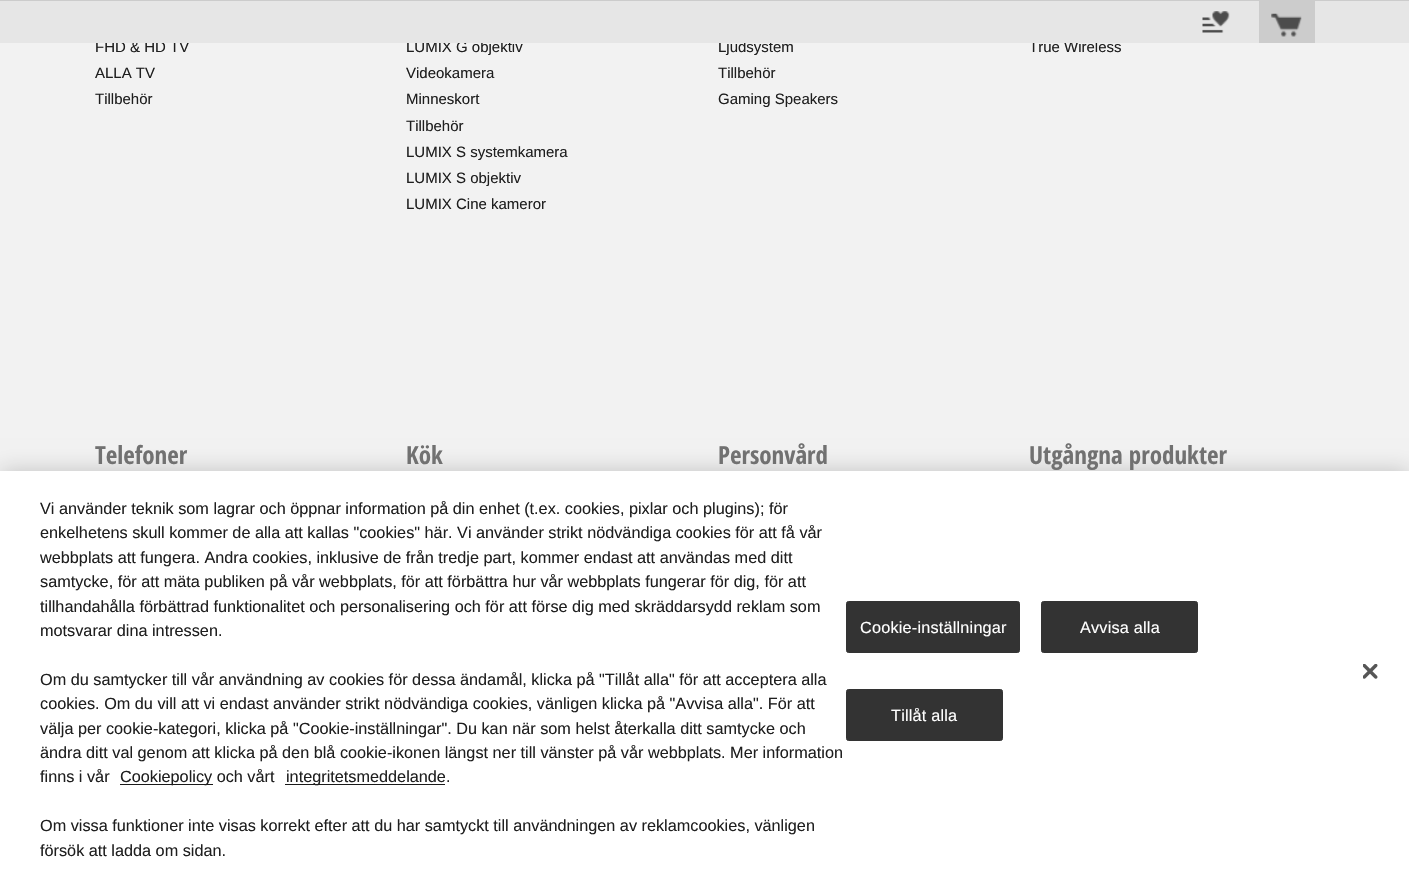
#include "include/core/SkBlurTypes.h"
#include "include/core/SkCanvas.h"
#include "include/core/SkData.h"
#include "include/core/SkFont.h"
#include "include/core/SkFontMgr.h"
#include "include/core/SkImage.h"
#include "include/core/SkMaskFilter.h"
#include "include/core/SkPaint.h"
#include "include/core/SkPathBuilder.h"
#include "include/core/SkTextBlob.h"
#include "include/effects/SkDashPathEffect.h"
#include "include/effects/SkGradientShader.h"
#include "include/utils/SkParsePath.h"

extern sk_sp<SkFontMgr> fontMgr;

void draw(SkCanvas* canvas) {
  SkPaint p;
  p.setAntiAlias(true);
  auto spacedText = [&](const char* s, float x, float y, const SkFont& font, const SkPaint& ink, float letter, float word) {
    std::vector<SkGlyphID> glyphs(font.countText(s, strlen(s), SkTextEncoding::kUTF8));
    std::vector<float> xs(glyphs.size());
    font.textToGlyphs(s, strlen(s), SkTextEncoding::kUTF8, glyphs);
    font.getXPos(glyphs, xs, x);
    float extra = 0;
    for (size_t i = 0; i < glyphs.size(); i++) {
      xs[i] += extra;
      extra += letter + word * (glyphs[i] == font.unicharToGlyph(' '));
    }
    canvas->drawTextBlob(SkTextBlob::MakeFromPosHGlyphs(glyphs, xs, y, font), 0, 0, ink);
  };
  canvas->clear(SkColorSetRGB(242, 242, 242));
  p.setColor(SkColorSetRGB(204, 204, 204));
  canvas->drawRect(SkRect::MakeLTRB(0, 0, 1409, 1), p);
  p.setColor(SkColorSetARGB(51, 0, 0, 0));
  p.setMaskFilter(SkMaskFilter::MakeBlur(kNormal_SkBlurStyle, 11));
  canvas->drawRect(SkRect::MakeLTRB(0, 471, 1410, 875), p);
  p.setMaskFilter(nullptr);
  p.setColor(SK_ColorWHITE);
  canvas->drawRect(SkRect::MakeLTRB(0, 471, 1409, 874), p);
  p.setColor(SkColorSetRGB(26, 26, 26));
  canvas->drawRect(SkRect::MakeLTRB(120, 784, 213, 785), p);
  canvas->drawRect(SkRect::MakeLTRB(285, 784, 445, 785), p);
  p.setColor(SkColorSetRGB(51, 51, 51));
  canvas->drawRoundRect(SkRect::MakeLTRB(846.5f, 601.5f, 1019.5f, 652.5f), 2, 2, p);
  p.setStyle(SkPaint::kStroke_Style);
  p.setStrokeWidth(1);
  canvas->drawRoundRect(SkRect::MakeLTRB(846.5f, 601.5f, 1019.5f, 652.5f), 2, 2, p);
  p.setStyle(SkPaint::kFill_Style);
  canvas->drawRoundRect(SkRect::MakeLTRB(1041.5f, 601.5f, 1197.5f, 652.5f), 2, 2, p);
  p.setStyle(SkPaint::kStroke_Style);
  canvas->drawRoundRect(SkRect::MakeLTRB(1041.5f, 601.5f, 1197.5f, 652.5f), 2, 2, p);
  p.setStyle(SkPaint::kFill_Style);
  canvas->drawRoundRect(SkRect::MakeLTRB(846.5f, 689.5f, 1002.5f, 740.5f), 2, 2, p);
  p.setStyle(SkPaint::kStroke_Style);
  canvas->drawRoundRect(SkRect::MakeLTRB(846.5f, 689.5f, 1002.5f, 740.5f), 2, 2, p);
  canvas->drawImageRect(SkImages::DeferredFromEncodedData(SkData::MakeFromFileName("images/4.png")), SkRect::MakeLTRB(1363, 664, 1378, 679), SkSamplingOptions());
  SkFont font1(fontMgr->matchFamilyStyle("Liberation Sans", SkFontStyle::Normal()), 15);
  font1.setSubpixel(true);
  p.setStyle(SkPaint::kFill_Style);
  p.setColor(SkColorSetRGB(31, 31, 31));
  canvas->drawString("FHD & HD TV", 95, 52, font1, p);
  canvas->drawString("ALLA TV", 95, 78, font1, p);
  canvas->drawString("Tillbehör", 95, 104, font1, p);
  canvas->drawString("LUMIX G objektiv", 406, 52, font1, p);
  canvas->drawString("Videokamera", 406, 78, font1, p);
  canvas->drawString("Minneskort", 406, 104, font1, p);
  canvas->drawString("Tillbehör", 406, 131, font1, p);
  canvas->drawString("LUMIX S systemkamera", 406, 157, font1, p);
  canvas->drawString("LUMIX S objektiv", 406, 183, font1, p);
  canvas->drawString("LUMIX Cine kameror", 406, 209, font1, p);
  canvas->drawString("Ljudsystem", 718, 52, font1, p);
  canvas->drawString("Tillbehör", 718, 78, font1, p);
  canvas->drawString("Gaming Speakers", 718, 104, font1, p);
  canvas->drawString("True Wireless", 1029, 52, font1, p);
  p.setColor(SkColorSetRGB(230, 230, 230));
  canvas->drawRect(SkRect::MakeLTRB(0, 1, 1409, 43), p);
  p.setColor(SkColorSetRGB(204, 204, 204));
  canvas->drawRect(SkRect::MakeLTRB(1259, 1, 1315, 43), p);
  canvas->drawImageRect(SkImages::DeferredFromEncodedData(SkData::MakeFromFileName("images/3.png")), SkRect::MakeLTRB(1271, 13, 1302, 37), SkSamplingOptions());
  canvas->drawImageRect(SkImages::DeferredFromEncodedData(SkData::MakeFromFileName("images/2.png")), SkRect::MakeLTRB(1202, 17, 1224, 33), SkSamplingOptions());
  canvas->drawImageRect(SkImages::DeferredFromEncodedData(SkData::MakeFromFileName("images/1.png")), SkRect::MakeLTRB(1212, 11, 1230, 27), SkSamplingOptions());
  SkFont font2(fontMgr->matchFamilyStyle("Open Sans Condensed", SkFontStyle::Bold()), 25);
  font2.setSubpixel(true);
  p.setColor(SkColorSetRGB(113, 113, 113));
  canvas->drawString("Telefoner", 95, 464, font2, p);
  canvas->drawString("Kök", 406, 464, font2, p);
  canvas->drawString("Personvård", 718, 464, font2, p);
  canvas->drawString("Utgångna produkter", 1029, 464, font2, p);
  SkFont font3(fontMgr->matchFamilyStyle("Liberation Sans", SkFontStyle::Normal()), 16.25f);
  font3.setSubpixel(true);
  p.setColor(SkColorSetRGB(31, 31, 31));
  canvas->drawString("Vi använder teknik som lagrar och öppnar information på din enhet (t.ex. cookies, pixlar och plugins); för", 40, 514, font3, p);
  canvas->drawString("enkelhetens skull kommer de alla att kallas \"cookies\" här. Vi använder strikt nödvändiga cookies för att få vår", 40, 538, font3, p);
  canvas->drawString("webbplats att fungera. Andra cookies, inklusive de från tredje part, kommer endast att användas med ditt", 40, 563, font3, p);
  canvas->drawString("samtycke, för att mäta publiken på vår webbplats, för att förbättra hur vår webbplats fungerar för dig, för att", 40, 587, font3, p);
  canvas->drawString("tillhandahålla förbättrad funktionalitet och personalisering och för att förse dig med skräddarsydd reklam som", 40, 612, font3, p);
  canvas->drawString("motsvarar dina intressen.", 40, 636, font3, p);
  canvas->drawString("Om du samtycker till vår användning av cookies för dessa ändamål, klicka på \"Tillåt alla\" för att acceptera alla", 40, 685, font3, p);
  canvas->drawString("cookies. Om du vill att vi endast använder strikt nödvändiga cookies, vänligen klicka på \"Avvisa alla\". För att", 40, 709, font3, p);
  canvas->drawString("välja per cookie-kategori, klicka på \"Cookie-inställningar\". Du kan när som helst återkalla ditt samtycke och", 40, 734, font3, p);
  canvas->drawString("ändra ditt val genom att klicka på den blå cookie-ikonen längst ner till vänster på vår webbplats. Mer information", 40, 758, font3, p);
  canvas->drawString("finns i vår", 40, 782, font3, p);
  canvas->drawString("Cookiepolicy och vårt", 120, 782, font3, p);
  canvas->drawString("integritetsmeddelande.", 286, 782, font3, p);
  canvas->drawString("Om vissa funktioner inte visas korrekt efter att du har samtyckt till användningen av reklamcookies, vänligen", 40, 831, font3, p);
  canvas->drawString("försök att ladda om sidan.", 40, 856, font3, p);
  p.setColor(SK_ColorWHITE);
  spacedText("Cookie-inställningar", 860, 633, font3, p, 0.2f, 0);
  spacedText("Avvisa alla", 1080, 633, font3, p, 0.2f, 0);
  spacedText("Tillåt alla", 891, 721, font3, p, 0.2f, 0);
}
